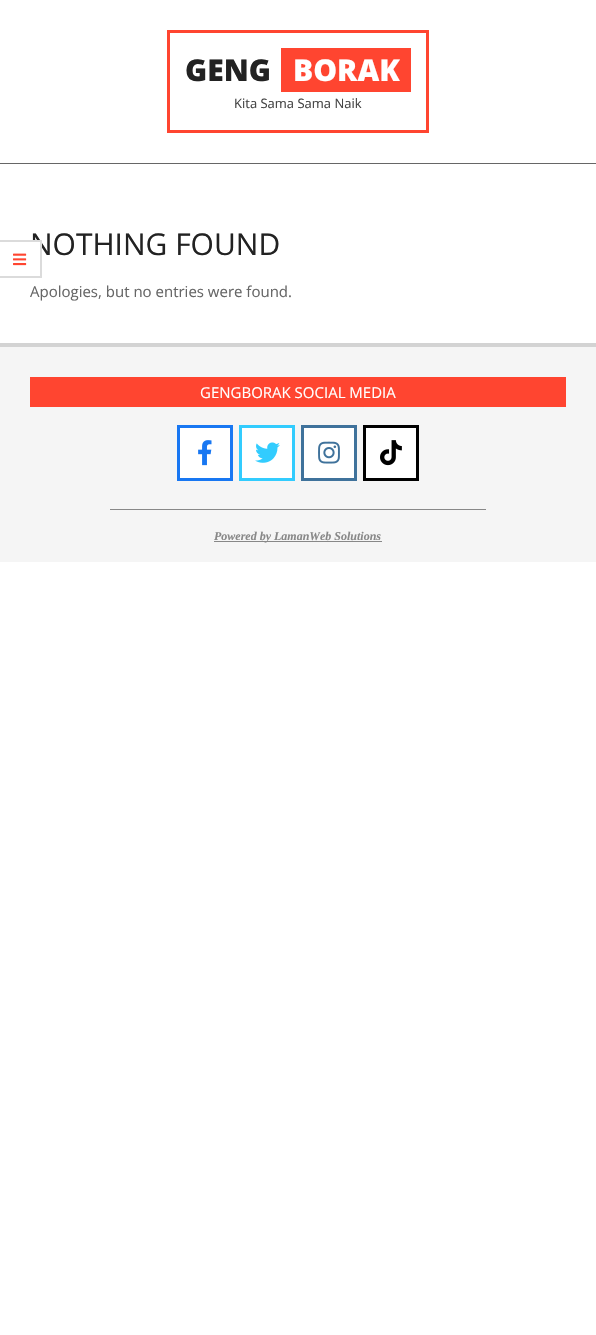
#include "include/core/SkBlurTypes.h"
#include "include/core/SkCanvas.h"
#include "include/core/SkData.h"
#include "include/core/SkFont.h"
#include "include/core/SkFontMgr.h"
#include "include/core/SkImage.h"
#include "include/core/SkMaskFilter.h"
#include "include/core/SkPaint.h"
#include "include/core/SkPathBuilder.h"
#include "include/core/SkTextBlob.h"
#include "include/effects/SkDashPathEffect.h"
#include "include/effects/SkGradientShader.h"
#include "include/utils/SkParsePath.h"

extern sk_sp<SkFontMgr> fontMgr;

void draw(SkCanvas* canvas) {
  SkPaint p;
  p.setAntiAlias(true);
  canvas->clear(SK_ColorWHITE);
  p.setColor(SkColorSetRGB(102, 102, 102));
  canvas->drawRect(SkRect::MakeLTRB(0, 163, 596, 164), p);
  p.setStyle(SkPaint::kStroke_Style);
  p.setStrokeWidth(3);
  p.setColor(SkColorSetRGB(255, 69, 48));
  canvas->drawRect(SkRect::MakeLTRB(168.5f, 31.5f, 427.5f, 131.5f), p);
  p.setStyle(SkPaint::kFill_Style);
  canvas->drawRect(SkRect::MakeLTRB(281, 48, 411, 92), p);
  canvas->drawImageRect(SkImages::DeferredFromEncodedData(SkData::MakeFromFileName("images/1.png")), SkRect::MakeLTRB(13, 253, 27, 266), SkSamplingOptions());
  p.setColor(SkColorSetRGB(211, 211, 211));
  canvas->drawRect(SkRect::MakeLTRB(0, 343, 596, 347), p);
  p.setColor(SkColorSetRGB(245, 245, 245));
  canvas->drawRect(SkRect::MakeLTRB(0, 347, 596, 562), p);
  p.setColor(SkColorSetRGB(255, 69, 48));
  canvas->drawRect(SkRect::MakeLTRB(30, 377, 566, 407), p);
  p.setColor(SK_ColorWHITE);
  canvas->drawRect(SkRect::MakeLTRB(178.5f, 426.5f, 231.5f, 479.5f), p);
  p.setStyle(SkPaint::kStroke_Style);
  p.setColor(SkColorSetRGB(24, 119, 242));
  canvas->drawRect(SkRect::MakeLTRB(178.5f, 426.5f, 231.5f, 479.5f), p);
  canvas->drawImageRect(SkImages::DeferredFromEncodedData(SkData::MakeFromFileName("images/2.png")), SkRect::MakeLTRB(198, 440, 212, 466), SkSamplingOptions());
  p.setStyle(SkPaint::kFill_Style);
  p.setColor(SK_ColorWHITE);
  canvas->drawRect(SkRect::MakeLTRB(240.5f, 426.5f, 293.5f, 479.5f), p);
  p.setStyle(SkPaint::kStroke_Style);
  p.setColor(SkColorSetRGB(50, 204, 254));
  canvas->drawRect(SkRect::MakeLTRB(240.5f, 426.5f, 293.5f, 479.5f), p);
  canvas->drawImageRect(SkImages::DeferredFromEncodedData(SkData::MakeFromFileName("images/3.png")), SkRect::MakeLTRB(255, 442, 280, 463), SkSamplingOptions());
  p.setStyle(SkPaint::kFill_Style);
  p.setColor(SK_ColorWHITE);
  canvas->drawRect(SkRect::MakeLTRB(302.5f, 426.5f, 355.5f, 479.5f), p);
  p.setStyle(SkPaint::kStroke_Style);
  p.setColor(SkColorSetRGB(63, 114, 155));
  canvas->drawRect(SkRect::MakeLTRB(302.5f, 426.5f, 355.5f, 479.5f), p);
  canvas->drawImageRect(SkImages::DeferredFromEncodedData(SkData::MakeFromFileName("images/4.png")), SkRect::MakeLTRB(318, 441, 340, 464), SkSamplingOptions());
  p.setStyle(SkPaint::kFill_Style);
  p.setColor(SK_ColorWHITE);
  canvas->drawRect(SkRect::MakeLTRB(364.5f, 426.5f, 417.5f, 479.5f), p);
  p.setStyle(SkPaint::kStroke_Style);
  p.setColor(SK_ColorBLACK);
  canvas->drawRect(SkRect::MakeLTRB(364.5f, 426.5f, 417.5f, 479.5f), p);
  canvas->drawImageRect(SkImages::DeferredFromEncodedData(SkData::MakeFromFileName("images/5.png")), SkRect::MakeLTRB(380, 440, 402, 466), SkSamplingOptions());
  p.setStyle(SkPaint::kFill_Style);
  p.setColor(SkColorSetRGB(136, 136, 136));
  canvas->drawRect(SkRect::MakeLTRB(110, 509, 486, 510), p);
  canvas->drawRect(SkRect::MakeLTRB(214, 541, 382, 542), p);
  SkFont font1(fontMgr->matchFamilyStyle("Open Sans", SkFontStyle(800, SkFontStyle::kNormal_Width, SkFontStyle::kUpright_Slant)), 30);
  font1.setSubpixel(true);
  p.setColor(SkColorSetRGB(34, 34, 34));
  canvas->drawString("GENG", 185, 81, font1, p);
  p.setColor(SK_ColorWHITE);
  canvas->drawString("BORAK", 293, 81, font1, p);
  SkFont font2(fontMgr->matchFamilyStyle("Open Sans", SkFontStyle::Normal()), 13);
  font2.setSubpixel(true);
  p.setColor(SkColorSetRGB(68, 68, 68));
  canvas->drawString("Kita Sama Sama Naik", 234, 108, font2, p);
  SkFont font3(fontMgr->matchFamilyStyle("Open Sans", SkFontStyle::Normal()), 30);
  font3.setSubpixel(true);
  p.setColor(SkColorSetRGB(34, 34, 34));
  canvas->drawString("NOTHING FOUND", 30, 255, font3, p);
  p.setColor(SK_ColorWHITE);
  canvas->drawRect(SkRect::MakeLTRB(32, 240, 42, 255), p);
  p.setColor(SkColorSetRGB(219, 219, 219));
  canvas->drawPath(SkPathBuilder().moveTo(0, 240).lineTo(42, 240).lineTo(40, 242).lineTo(0, 242).close().detach(), p);
  p.setColor(SkColorSetARGB(36, 0, 0, 0));
  canvas->drawPath(SkPathBuilder().moveTo(42, 240).lineTo(42, 278).lineTo(40, 276).lineTo(40, 242).close().detach(), p);
  canvas->drawPath(SkPathBuilder().moveTo(42, 278).lineTo(0, 278).lineTo(0, 276).lineTo(40, 276).close().detach(), p);
  SkFont font4(fontMgr->matchFamilyStyle("Open Sans", SkFontStyle::Normal()), 15);
  font4.setSubpixel(true);
  p.setColor(SkColorSetRGB(102, 102, 102));
  canvas->drawString("Apologies, but no entries were found.", 30, 297, font4, p);
  p.setColor(SK_ColorWHITE);
  canvas->drawString("GENGBORAK SOCIAL MEDIA", 200, 398, font4, p);
  SkFont font5(fontMgr->matchFamilyStyle("Liberation Serif", SkFontStyle::BoldItalic()), 12);
  font5.setSubpixel(true);
  p.setColor(SkColorSetRGB(136, 136, 136));
  canvas->drawString("Powered by LamanWeb Solutions", 214, 540, font5, p);
}
